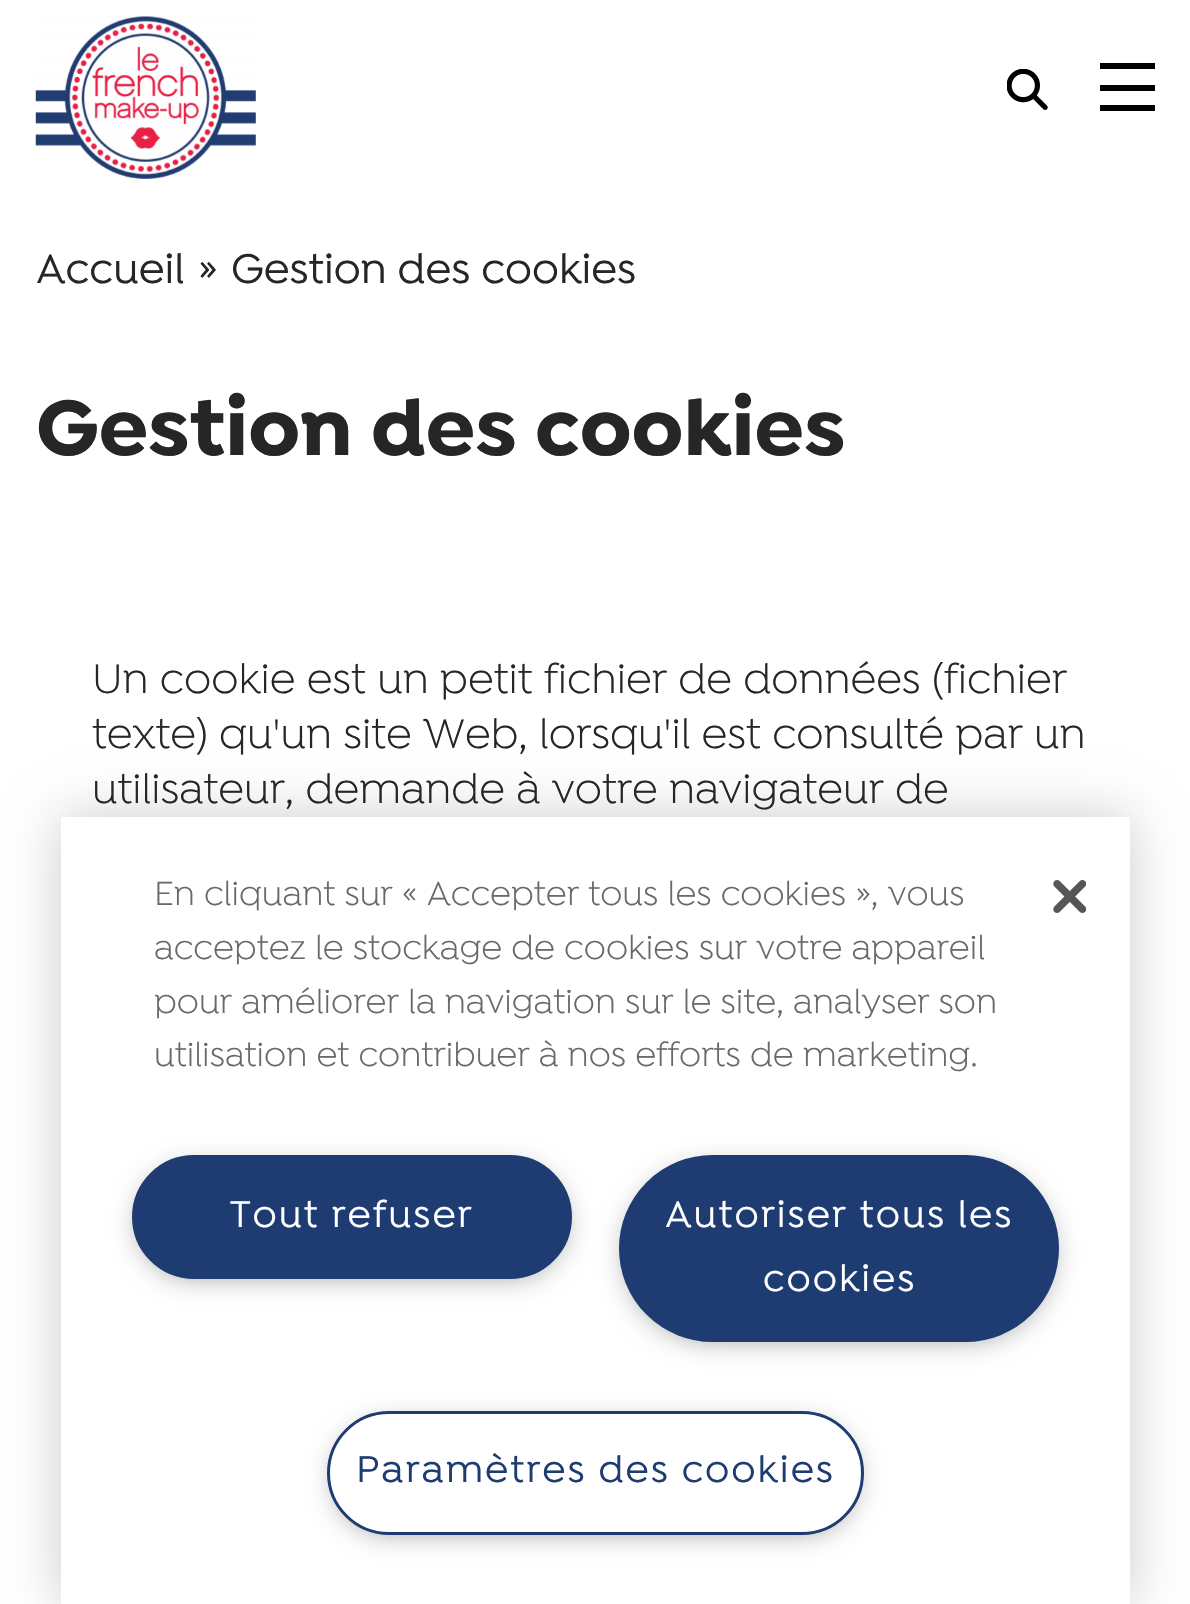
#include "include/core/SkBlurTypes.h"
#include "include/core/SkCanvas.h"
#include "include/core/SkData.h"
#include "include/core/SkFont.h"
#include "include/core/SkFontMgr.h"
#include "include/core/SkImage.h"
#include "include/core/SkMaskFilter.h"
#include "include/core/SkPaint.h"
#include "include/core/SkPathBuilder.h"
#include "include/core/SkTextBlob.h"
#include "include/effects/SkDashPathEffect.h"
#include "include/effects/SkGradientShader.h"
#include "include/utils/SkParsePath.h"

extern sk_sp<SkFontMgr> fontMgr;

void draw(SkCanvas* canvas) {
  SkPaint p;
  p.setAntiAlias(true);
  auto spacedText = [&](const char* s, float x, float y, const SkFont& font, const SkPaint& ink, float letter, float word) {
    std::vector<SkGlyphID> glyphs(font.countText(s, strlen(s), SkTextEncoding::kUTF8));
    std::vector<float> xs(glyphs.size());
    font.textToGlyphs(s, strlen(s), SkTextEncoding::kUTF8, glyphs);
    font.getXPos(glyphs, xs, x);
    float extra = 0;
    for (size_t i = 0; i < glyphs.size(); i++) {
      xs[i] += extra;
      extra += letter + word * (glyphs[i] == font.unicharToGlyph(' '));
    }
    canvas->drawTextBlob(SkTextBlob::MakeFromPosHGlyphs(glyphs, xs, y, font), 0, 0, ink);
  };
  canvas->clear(SK_ColorWHITE);
  canvas->drawImageRect(SkImages::DeferredFromEncodedData(SkData::MakeFromFileName("images/1.png")), SkRect::MakeLTRB(35, 16, 256, 179), SkSamplingOptions());
  canvas->drawImageRect(SkImages::DeferredFromEncodedData(SkData::MakeFromFileName("images/2.png")), SkRect::MakeLTRB(1007, 69, 1048, 110), SkSamplingOptions());
  p.setColor(SK_ColorBLACK);
  canvas->drawRect(SkRect::MakeLTRB(1100, 105, 1155, 111), p);
  canvas->drawRect(SkRect::MakeLTRB(1100, 63, 1155, 69), p);
  canvas->drawRect(SkRect::MakeLTRB(1100, 85, 1155, 91), p);
  p.setColor(SkColorSetARGB(51, 0, 0, 0));
  p.setMaskFilter(SkMaskFilter::MakeBlur(kNormal_SkBlurStyle, 25));
  canvas->drawRect(SkRect::MakeLTRB(61, 817, 1130, 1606), p);
  p.setMaskFilter(nullptr);
  p.setColor(SK_ColorWHITE);
  canvas->drawRect(SkRect::MakeLTRB(61, 817, 1130, 1604), p);
  p.setColor(SkColorSetRGB(153, 153, 153));
  p.setMaskFilter(SkMaskFilter::MakeBlur(kNormal_SkBlurStyle, 14));
  canvas->drawRoundRect(SkRect::MakeLTRB(140, 1169, 564, 1276), 53.5f, 53.5f, p);
  p.setMaskFilter(nullptr);
  p.setColor(SkColorSetRGB(30, 59, 114));
  canvas->drawRoundRect(SkRect::MakeLTRB(133.5f, 1156.5f, 570.5f, 1277.5f), 60.5f, 60.5f, p);
  p.setStyle(SkPaint::kStroke_Style);
  p.setStrokeWidth(3);
  canvas->drawRoundRect(SkRect::MakeLTRB(133.5f, 1156.5f, 570.5f, 1277.5f), 60.5f, 60.5f, p);
  p.setStyle(SkPaint::kFill_Style);
  p.setColor(SkColorSetRGB(153, 153, 153));
  p.setMaskFilter(SkMaskFilter::MakeBlur(kNormal_SkBlurStyle, 14));
  canvas->drawRoundRect(SkRect::MakeLTRB(627, 1169, 1051, 1339), 85, 85, p);
  p.setMaskFilter(nullptr);
  p.setColor(SkColorSetRGB(30, 59, 114));
  canvas->drawRoundRect(SkRect::MakeLTRB(620.5f, 1156.5f, 1057.5f, 1340.5f), 92, 92, p);
  p.setStyle(SkPaint::kStroke_Style);
  canvas->drawRoundRect(SkRect::MakeLTRB(620.5f, 1156.5f, 1057.5f, 1340.5f), 92, 92, p);
  p.setStyle(SkPaint::kFill_Style);
  p.setColor(SkColorSetRGB(153, 153, 153));
  p.setMaskFilter(SkMaskFilter::MakeBlur(kNormal_SkBlurStyle, 14));
  canvas->drawRoundRect(SkRect::MakeLTRB(336, 1425, 855, 1532), 53.5f, 53.5f, p);
  p.setMaskFilter(nullptr);
  p.setColor(SK_ColorWHITE);
  canvas->drawRoundRect(SkRect::MakeLTRB(328.5f, 1412.5f, 862.5f, 1533.5f), 60.5f, 60.5f, p);
  p.setStyle(SkPaint::kStroke_Style);
  p.setColor(SkColorSetRGB(30, 59, 114));
  canvas->drawRoundRect(SkRect::MakeLTRB(328.5f, 1412.5f, 862.5f, 1533.5f), 60.5f, 60.5f, p);
  canvas->drawImageRect(SkImages::DeferredFromEncodedData(SkData::MakeFromFileName("images/3.png")), SkRect::MakeLTRB(1053, 880, 1086, 913), SkSamplingOptions());
  SkFont font1(fontMgr->matchFamilyStyle("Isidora", SkFontStyle(500, SkFontStyle::kNormal_Width, SkFontStyle::kUpright_Slant)), 44);
  font1.setSubpixel(true);
  p.setStyle(SkPaint::kFill_Style);
  p.setColor(SkColorSetRGB(38, 38, 38));
  canvas->drawString("Accueil", 36, 283, font1, p);
  canvas->drawString("»", 198, 283, font1, p);
  canvas->drawString("Gestion des cookies", 231, 283, font1, p);
  SkFont font2(fontMgr->matchFamilyStyle("Isidora", SkFontStyle::Bold()), 83.5f);
  font2.setSubpixel(true);
  canvas->drawString("Gestion des cookies", 36, 455, font2, p);
  SkFont font3(fontMgr->matchFamilyStyle("Isidora", SkFontStyle::Normal()), 44);
  font3.setSubpixel(true);
  canvas->drawString("Un cookie est un petit fichier de données (fichier", 92, 693, font3, p);
  canvas->drawString("texte) qu'un site Web, lorsqu'il est consulté par un", 92, 748, font3, p);
  canvas->drawString("utilisateur, demande à votre navigateur de", 92, 803, font3, p);
  SkFont font4(fontMgr->matchFamilyStyle("Isidora", SkFontStyle::Normal()), 35.75f);
  font4.setSubpixel(true);
  p.setColor(SkColorSetRGB(105, 105, 105));
  canvas->drawString("En cliquant sur « Accepter tous les cookies », vous", 154, 905, font4, p);
  canvas->drawString("acceptez le stockage de cookies sur votre appareil", 154, 959, font4, p);
  canvas->drawString("pour améliorer la navigation sur le site, analyser son", 154, 1013, font4, p);
  canvas->drawString("utilisation et contribuer à nos efforts de marketing.", 154, 1066, font4, p);
  SkFont font5(fontMgr->matchFamilyStyle("Isidora", SkFontStyle(500, SkFontStyle::kNormal_Width, SkFontStyle::kUpright_Slant)), 39.6f);
  font5.setSubpixel(true);
  p.setColor(SK_ColorWHITE);
  spacedText("Tout refuser", 230, 1227, font5, p, 2, 0);
  spacedText("Autoriser tous les", 665, 1227, font5, p, 2, 0);
  spacedText("cookies", 763, 1291, font5, p, 2, 0);
  p.setColor(SkColorSetRGB(30, 59, 114));
  spacedText("Paramètres des cookies", 356, 1482, font5, p, 2, 0);
}
